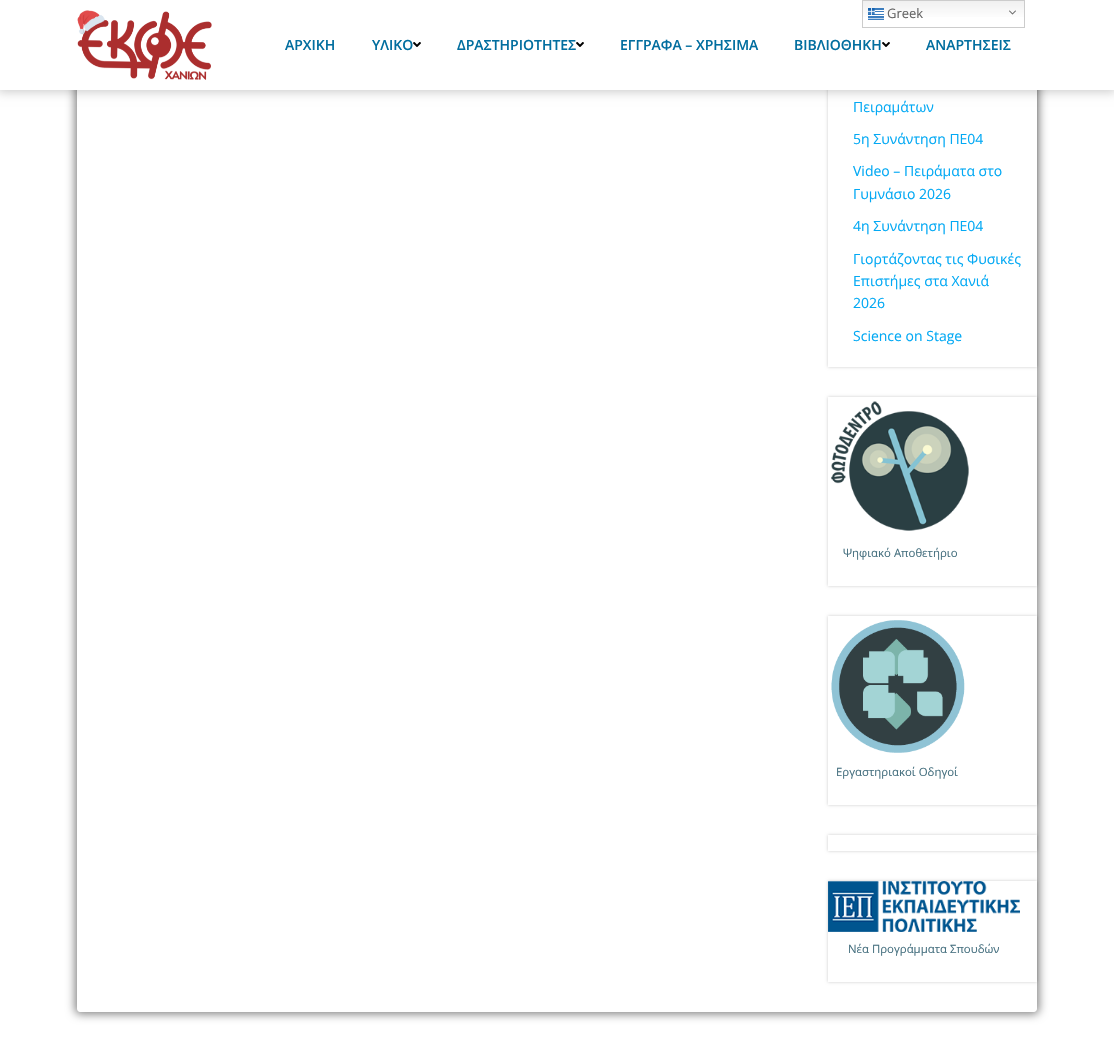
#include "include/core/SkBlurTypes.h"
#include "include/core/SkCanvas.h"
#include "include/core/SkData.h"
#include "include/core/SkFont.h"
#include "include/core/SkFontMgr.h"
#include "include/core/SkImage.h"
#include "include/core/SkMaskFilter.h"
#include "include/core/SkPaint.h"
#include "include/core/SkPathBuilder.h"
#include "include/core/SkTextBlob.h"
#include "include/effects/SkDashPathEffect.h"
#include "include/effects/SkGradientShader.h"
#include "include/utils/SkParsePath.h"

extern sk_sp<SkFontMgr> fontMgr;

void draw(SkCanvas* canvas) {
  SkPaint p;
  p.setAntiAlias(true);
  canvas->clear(SK_ColorWHITE);
  p.setColor(SkColorSetARGB(51, 0, 0, 0));
  p.setMaskFilter(SkMaskFilter::MakeBlur(kNormal_SkBlurStyle, 5));
  canvas->drawRect(SkRect::MakeLTRB(-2, -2, 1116, 92), p);
  p.setMaskFilter(nullptr);
  canvas->save();
  canvas->clipPath(SkPathBuilder(SkPathFillType::kEvenOdd).moveTo(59, 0).lineTo(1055, 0).lineTo(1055, 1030).lineTo(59, 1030).close().moveTo(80, -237).lineTo(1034, -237).cubicTo(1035.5f, -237, 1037, -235.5f, 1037, -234).lineTo(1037, 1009).cubicTo(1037, 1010.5f, 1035.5f, 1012, 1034, 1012).lineTo(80, 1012).cubicTo(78.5f, 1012, 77, 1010.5f, 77, 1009).lineTo(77, -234).cubicTo(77, -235.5f, 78.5f, -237, 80, -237).close().detach(), true);
  p.setColor(SkColorSetARGB(128, 0, 0, 0));
  p.setMaskFilter(SkMaskFilter::MakeBlur(kNormal_SkBlurStyle, 5));
  canvas->drawRoundRect(SkRect::MakeLTRB(75, -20, 1039, 1014), 5, 5, p);
  p.setMaskFilter(nullptr);
  canvas->restore();
  canvas->save();
  canvas->clipPath(SkPathBuilder(SkPathFillType::kEvenOdd).moveTo(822, 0).lineTo(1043, 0).lineTo(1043, 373).lineTo(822, 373).close().moveTo(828, -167).lineTo(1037, -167).lineTo(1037, 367).lineTo(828, 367).close().detach(), true);
  p.setColor(SkColorSetARGB(51, 0, 0, 0));
  p.setMaskFilter(SkMaskFilter::MakeBlur(kNormal_SkBlurStyle, 1.5f));
  canvas->drawRect(SkRect::MakeLTRB(828, -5, 1037, 367), p);
  p.setMaskFilter(nullptr);
  canvas->restore();
  p.setColor(SK_ColorWHITE);
  canvas->drawRect(SkRect::MakeLTRB(0, 0, 1114, 90), p);
  {
    const SkColor colors[] = {SkColorSetRGB(239, 239, 239), SK_ColorWHITE};
    const float stops[] = {0, 0.7f};
    const SkPoint ends[] = {{944, 0}, {944, 28}};
    p.setShader(SkGradientShader::MakeLinear(ends, colors, stops, 2, SkTileMode::kClamp));
    p.setAlpha(255);
  }
  canvas->drawRect(SkRect::MakeLTRB(863, 1, 1024, 17), p);
  p.setStyle(SkPaint::kStroke_Style);
  p.setStrokeWidth(1);
  p.setShader(nullptr);
  p.setColor(SkColorSetRGB(204, 204, 204));
  canvas->drawRect(SkRect::MakeLTRB(862.5f, 0.5f, 1024.5f, 27.5f), p);
  canvas->drawImageRect(SkImages::DeferredFromEncodedData(SkData::MakeFromFileName("images/1.png")), SkRect::MakeLTRB(868, 8, 884, 20), SkSamplingOptions());
  canvas->drawImageRect(SkImages::DeferredFromEncodedData(SkData::MakeFromFileName("images/2.png")), SkRect::MakeLTRB(1009, 10, 1016, 15), SkSamplingOptions());
  canvas->drawImageRect(SkImages::DeferredFromEncodedData(SkData::MakeFromFileName("images/3.png")), SkRect::MakeLTRB(77, 10, 212, 80), SkSamplingOptions());
  canvas->drawImageRect(SkImages::DeferredFromEncodedData(SkData::MakeFromFileName("images/4.png")), SkRect::MakeLTRB(413, 42, 421, 47), SkSamplingOptions());
  canvas->drawImageRect(SkImages::DeferredFromEncodedData(SkData::MakeFromFileName("images/4.png")), SkRect::MakeLTRB(576, 42, 584, 47), SkSamplingOptions());
  canvas->drawImageRect(SkImages::DeferredFromEncodedData(SkData::MakeFromFileName("images/4.png")), SkRect::MakeLTRB(882, 42, 890, 47), SkSamplingOptions());
  canvas->save();
  canvas->clipPath(SkPathBuilder(SkPathFillType::kEvenOdd).moveTo(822, 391).lineTo(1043, 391).lineTo(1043, 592).lineTo(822, 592).close().moveTo(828, 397).lineTo(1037, 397).lineTo(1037, 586).lineTo(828, 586).close().detach(), true);
  p.setStyle(SkPaint::kFill_Style);
  p.setColor(SkColorSetARGB(51, 0, 0, 0));
  p.setMaskFilter(SkMaskFilter::MakeBlur(kNormal_SkBlurStyle, 1.5f));
  canvas->drawRect(SkRect::MakeLTRB(828, 397, 1037, 586), p);
  p.setMaskFilter(nullptr);
  canvas->restore();
  canvas->drawImageRect(SkImages::DeferredFromEncodedData(SkData::MakeFromFileName("images/5.png")), SkRect::MakeLTRB(831, 401, 969, 531), SkSamplingOptions());
  canvas->save();
  canvas->clipPath(SkPathBuilder(SkPathFillType::kEvenOdd).moveTo(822, 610).lineTo(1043, 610).lineTo(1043, 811).lineTo(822, 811).close().moveTo(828, 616).lineTo(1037, 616).lineTo(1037, 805).lineTo(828, 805).close().detach(), true);
  p.setMaskFilter(SkMaskFilter::MakeBlur(kNormal_SkBlurStyle, 1.5f));
  canvas->drawRect(SkRect::MakeLTRB(828, 616, 1037, 805), p);
  p.setMaskFilter(nullptr);
  canvas->restore();
  canvas->drawImageRect(SkImages::DeferredFromEncodedData(SkData::MakeFromFileName("images/6.png")), SkRect::MakeLTRB(831, 620, 965, 753), SkSamplingOptions());
  canvas->save();
  canvas->clipPath(SkPathBuilder(SkPathFillType::kEvenOdd).moveTo(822, 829).lineTo(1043, 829).lineTo(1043, 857).lineTo(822, 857).close().moveTo(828, 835).lineTo(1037, 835).lineTo(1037, 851).lineTo(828, 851).close().detach(), true);
  p.setMaskFilter(SkMaskFilter::MakeBlur(kNormal_SkBlurStyle, 1.5f));
  canvas->drawRect(SkRect::MakeLTRB(828, 835, 1037, 851), p);
  p.setMaskFilter(nullptr);
  canvas->restore();
  canvas->save();
  canvas->clipPath(SkPathBuilder(SkPathFillType::kEvenOdd).moveTo(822, 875).lineTo(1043, 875).lineTo(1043, 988).lineTo(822, 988).close().moveTo(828, 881).lineTo(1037, 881).lineTo(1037, 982).lineTo(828, 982).close().detach(), true);
  p.setMaskFilter(SkMaskFilter::MakeBlur(kNormal_SkBlurStyle, 1.5f));
  canvas->drawRect(SkRect::MakeLTRB(828, 881, 1037, 982), p);
  p.setMaskFilter(nullptr);
  canvas->restore();
  canvas->drawImageRect(SkImages::DeferredFromEncodedData(SkData::MakeFromFileName("images/7.png")), SkRect::MakeLTRB(828, 881, 1020, 932), SkSamplingOptions());
  SkFont font1(fontMgr->matchFamilyStyle("Open Sans", SkFontStyle::Normal()), 13);
  font1.setSubpixel(true);
  p.setColor(SkColorSetRGB(102, 102, 102));
  canvas->drawString("Greek", 887, 18, font1, p);
  SkFont font2(fontMgr->matchFamilyStyle("Open Sans", SkFontStyle(600, SkFontStyle::kNormal_Width, SkFontStyle::kUpright_Slant)), 14);
  font2.setSubpixel(true);
  p.setColor(SkColorSetRGB(2, 110, 159));
  canvas->drawString("ΑΡΧΙΚΗ", 285, 50, font2, p);
  canvas->drawString("ΥΛΙΚΟ", 372, 50, font2, p);
  canvas->drawString("ΔΡΑΣΤΗΡΙΟΤΗΤΕΣ", 457, 50, font2, p);
  canvas->drawString("ΕΓΓΡΑΦΑ – ΧΡΗΣΙΜΑ", 620, 50, font2, p);
  canvas->drawString("ΒΙΒΛΙΟΘΗΚΗ", 794, 50, font2, p);
  canvas->drawString("ΑΝΑΡΤΗΣΕΙΣ", 926, 50, font2, p);
  SkFont font3(fontMgr->matchFamilyStyle("Open Sans", SkFontStyle::Normal()), 14);
  font3.setSubpixel(true);
  p.setColor(SkColorSetRGB(3, 169, 244));
  canvas->drawString("Πειραμάτων", 853, 112, font3, p);
  canvas->drawString("5η Συνάντηση ΠΕ04", 853, 144, font3, p);
  canvas->drawString("Video – Πειράματα στο", 853, 176, font3, p);
  canvas->drawString("Γυμνάσιο 2026", 853, 199, font3, p);
  canvas->drawString("4η Συνάντηση ΠΕ04", 853, 231, font3, p);
  canvas->drawString("Γιορτάζοντας τις Φυσικές", 853, 264, font3, p);
  canvas->drawString("Επιστήμες στα Χανιά", 853, 286, font3, p);
  canvas->drawString("2026", 853, 308, font3, p);
  canvas->drawString("Science on Stage", 853, 341, font3, p);
  SkFont font4(fontMgr->matchFamilyStyle("Open Sans", SkFontStyle::Normal()), 11.4f);
  font4.setSubpixel(true);
  p.setColor(SkColorSetRGB(70, 112, 127));
  canvas->drawString("Ψηφιακό Αποθετήριο", 843, 557, font4, p);
  canvas->drawString("Εργαστηριακοί Οδηγοί", 836, 776, font4, p);
  canvas->drawString("Νέα Προγράμματα Σπουδών", 848, 953, font4, p);
}
